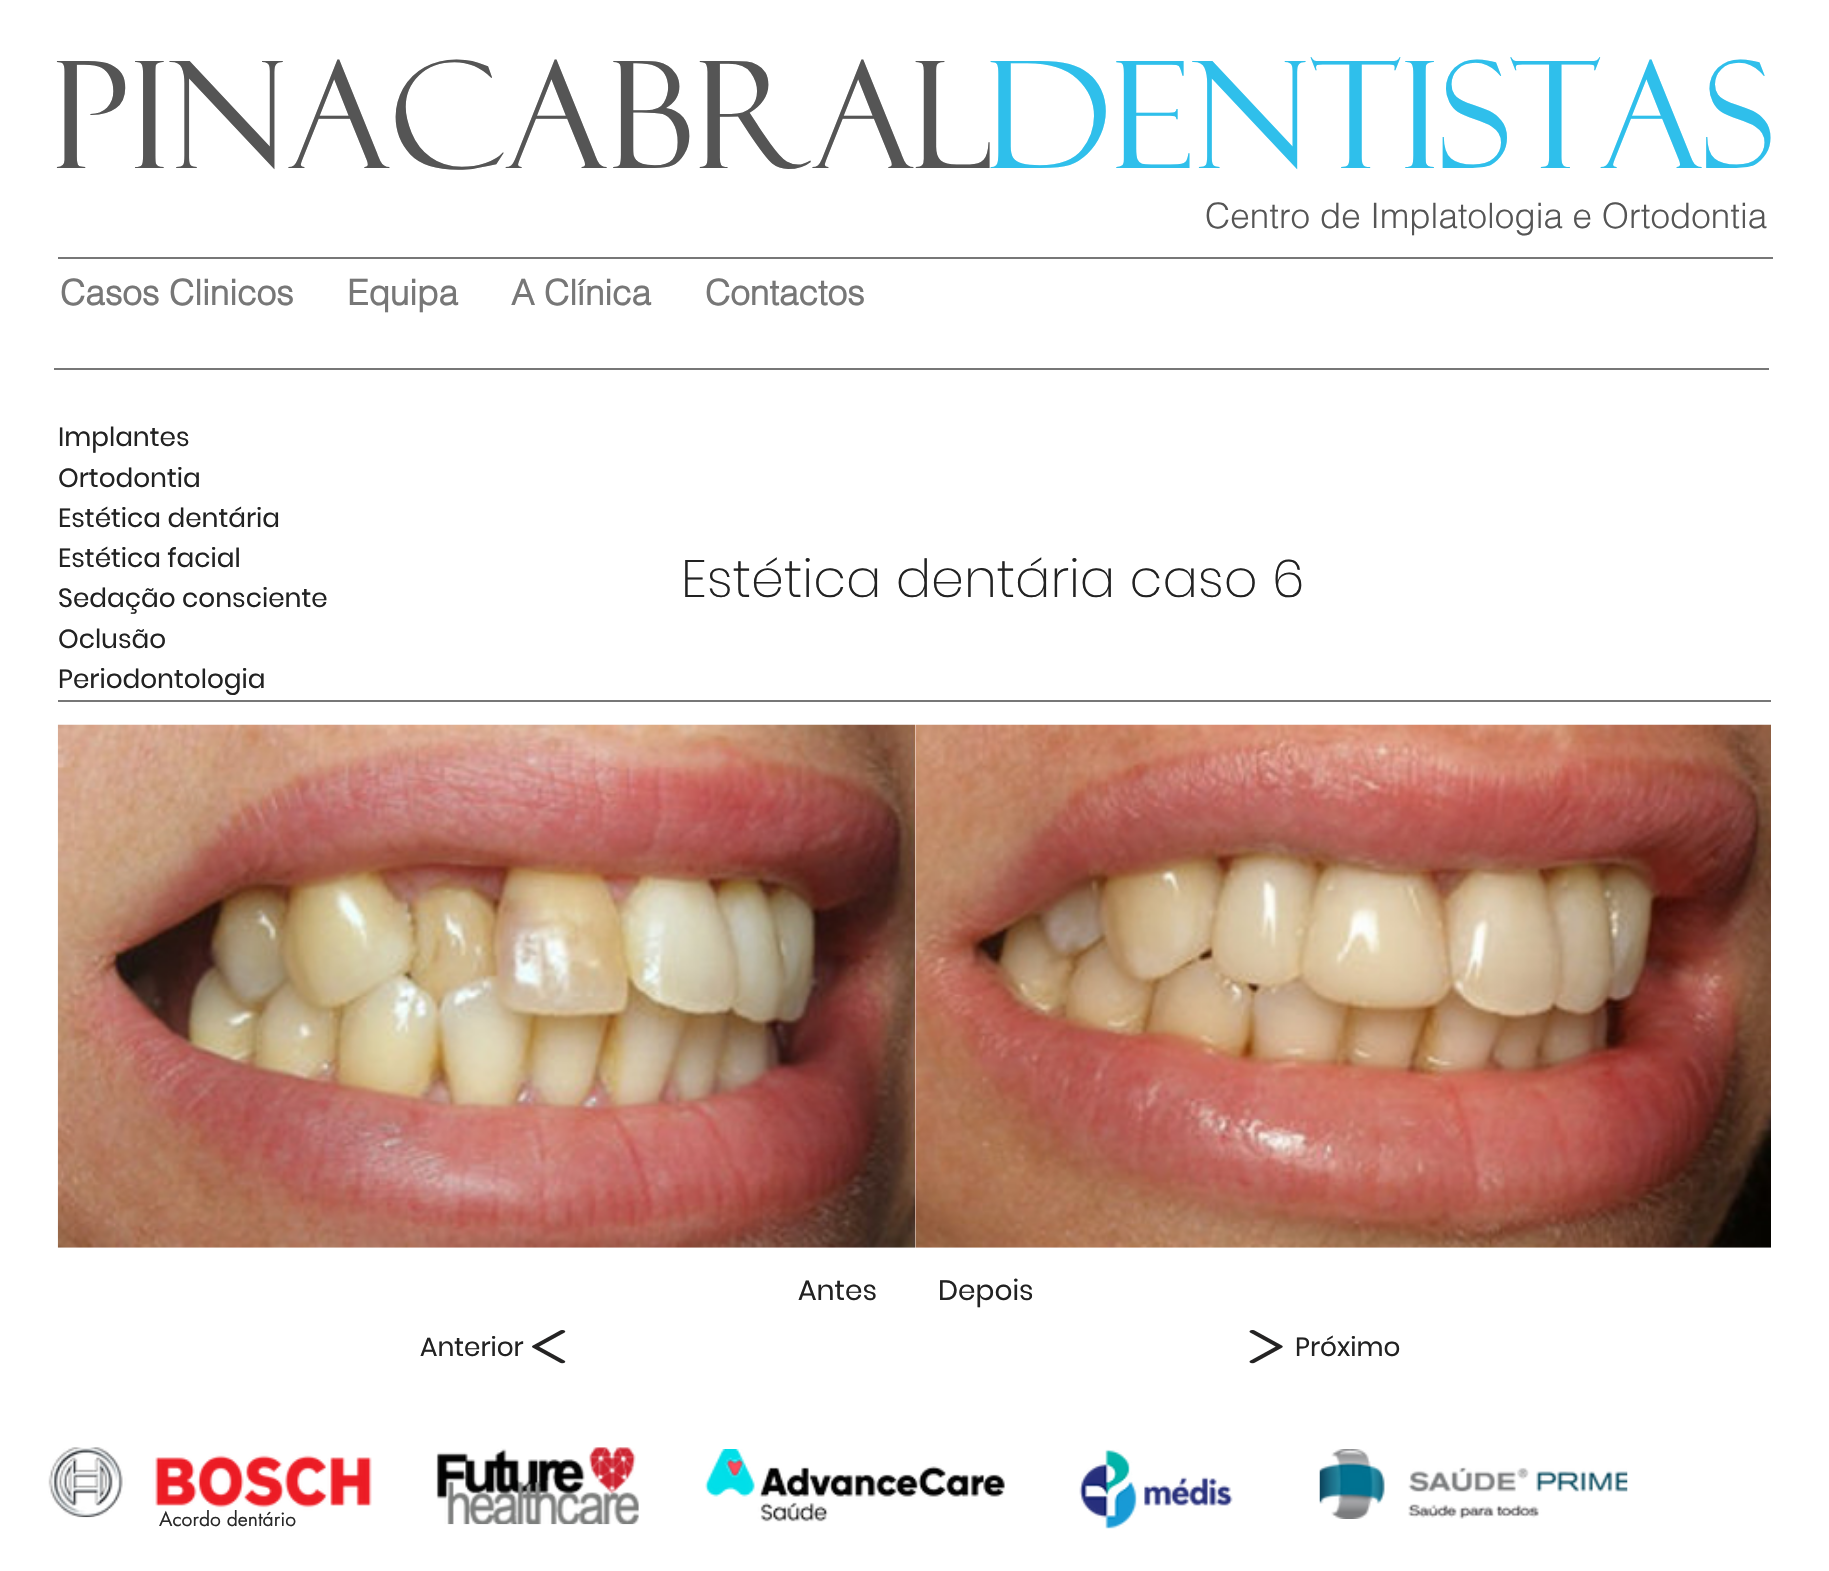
#include "include/core/SkBlurTypes.h"
#include "include/core/SkCanvas.h"
#include "include/core/SkData.h"
#include "include/core/SkFont.h"
#include "include/core/SkFontMgr.h"
#include "include/core/SkImage.h"
#include "include/core/SkMaskFilter.h"
#include "include/core/SkPaint.h"
#include "include/core/SkPathBuilder.h"
#include "include/core/SkTextBlob.h"
#include "include/effects/SkDashPathEffect.h"
#include "include/effects/SkGradientShader.h"
#include "include/utils/SkParsePath.h"

extern sk_sp<SkFontMgr> fontMgr;

void draw(SkCanvas* canvas) {
  SkPaint p;
  p.setAntiAlias(true);
  canvas->clear(SK_ColorWHITE);
  p.setColor(SkColorSetRGB(119, 119, 119));
  canvas->drawRect(SkRect::MakeLTRB(58, 257, 1773, 259), p);
  canvas->drawRect(SkRect::MakeLTRB(54, 368, 1769, 370), p);
  canvas->drawRect(SkRect::MakeLTRB(58, 700, 1771, 702), p);
  canvas->drawImageRect(SkImages::DeferredFromEncodedData(SkData::MakeFromFileName("images/1.png")), SkRect::MakeLTRB(57, 724, 915, 1248), SkSamplingOptions());
  canvas->drawImageRect(SkImages::DeferredFromEncodedData(SkData::MakeFromFileName("images/2.png")), SkRect::MakeLTRB(915, 724, 1771, 1248), SkSamplingOptions());
  canvas->drawImageRect(SkImages::DeferredFromEncodedData(SkData::MakeFromFileName("images/3.png")), SkRect::MakeLTRB(532, 1330, 566, 1364), SkSamplingOptions());
  canvas->drawImageRect(SkImages::DeferredFromEncodedData(SkData::MakeFromFileName("images/4.png")), SkRect::MakeLTRB(1249, 1330, 1283, 1364), SkSamplingOptions());
  canvas->drawImageRect(SkImages::DeferredFromEncodedData(SkData::MakeFromFileName("images/5.png")), SkRect::MakeLTRB(48, 1447, 372, 1518), SkSamplingOptions());
  canvas->drawImageRect(SkImages::DeferredFromEncodedData(SkData::MakeFromFileName("images/6.png")), SkRect::MakeLTRB(436, 1447, 639, 1525), SkSamplingOptions());
  canvas->drawImageRect(SkImages::DeferredFromEncodedData(SkData::MakeFromFileName("images/7.png")), SkRect::MakeLTRB(705, 1449, 1005, 1522), SkSamplingOptions());
  canvas->drawImageRect(SkImages::DeferredFromEncodedData(SkData::MakeFromFileName("images/8.png")), SkRect::MakeLTRB(1079, 1449, 1233, 1529), SkSamplingOptions());
  canvas->drawImageRect(SkImages::DeferredFromEncodedData(SkData::MakeFromFileName("images/9.png")), SkRect::MakeLTRB(1319, 1449, 1628, 1519), SkSamplingOptions());
  SkFont font1(fontMgr->matchFamilyStyle("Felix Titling", SkFontStyle::Normal()), 148.75f);
  font1.setSubpixel(true);
  p.setColor(SkColorSetRGB(85, 85, 85));
  canvas->drawString("PINACABRAL", 51, 168, font1, p);
  p.setColor(SkColorSetRGB(47, 191, 235));
  canvas->drawString("dentistas", 985, 168, font1, p);
  SkFont font2(fontMgr->matchFamilyStyle("helvetica", SkFontStyle(300, SkFontStyle::kNormal_Width, SkFontStyle::kUpright_Slant)), 35);
  font2.setSubpixel(true);
  p.setColor(SkColorSetRGB(85, 85, 85));
  canvas->drawString("Centro de Implatologia e Ortodontia", 1205, 228, font2, p);
  SkFont font3(fontMgr->matchFamilyStyle("helvetica", SkFontStyle::Bold()), 35);
  font3.setSubpixel(true);
  p.setColor(SkColorSetRGB(119, 119, 119));
  canvas->drawString("Casos Clinicos", 60, 305, font3, p);
  canvas->drawString("Equipa", 347, 305, font3, p);
  canvas->drawString("A Clínica", 511, 305, font3, p);
  canvas->drawString("Contactos", 705, 305, font3, p);
  SkFont font4(fontMgr->matchFamilyStyle("Poppins", SkFontStyle::Normal()), 26.25f);
  font4.setSubpixel(true);
  p.setColor(SkColorSetRGB(34, 34, 34));
  canvas->drawString("Implantes", 58, 446, font4, p);
  canvas->drawString("Ortodontia", 58, 487, font4, p);
  canvas->drawString("Estética dentária", 58, 527, font4, p);
  canvas->drawString("Estética facial", 58, 567, font4, p);
  SkFont font5(fontMgr->matchFamilyStyle("Poppins", SkFontStyle(200, SkFontStyle::kNormal_Width, SkFontStyle::kUpright_Slant)), 52.5f);
  font5.setSubpixel(true);
  canvas->drawString("Estética dentária caso 6", 681, 597, font5, p);
  canvas->drawString("Sedação consciente", 58, 607, font4, p);
  canvas->drawString("Oclusão", 58, 648, font4, p);
  canvas->drawString("Periodontologia", 58, 688, font4, p);
  SkFont font6(fontMgr->matchFamilyStyle("Poppins", SkFontStyle::Normal()), 28);
  font6.setSubpixel(true);
  canvas->drawString("Antes", 798, 1300, font6, p);
  canvas->drawString("Depois", 938, 1300, font6, p);
  canvas->drawString("Anterior", 420, 1356, font4, p);
  canvas->drawString("Próximo", 1295, 1356, font4, p);
  SkFont font7(fontMgr->matchFamilyStyle("futura", SkFontStyle::Normal()), 19.25f);
  font7.setSubpixel(true);
  p.setColor(SkColorSetRGB(41, 41, 41));
  canvas->drawString("Acordo dentário", 159, 1526, font7, p);
}
